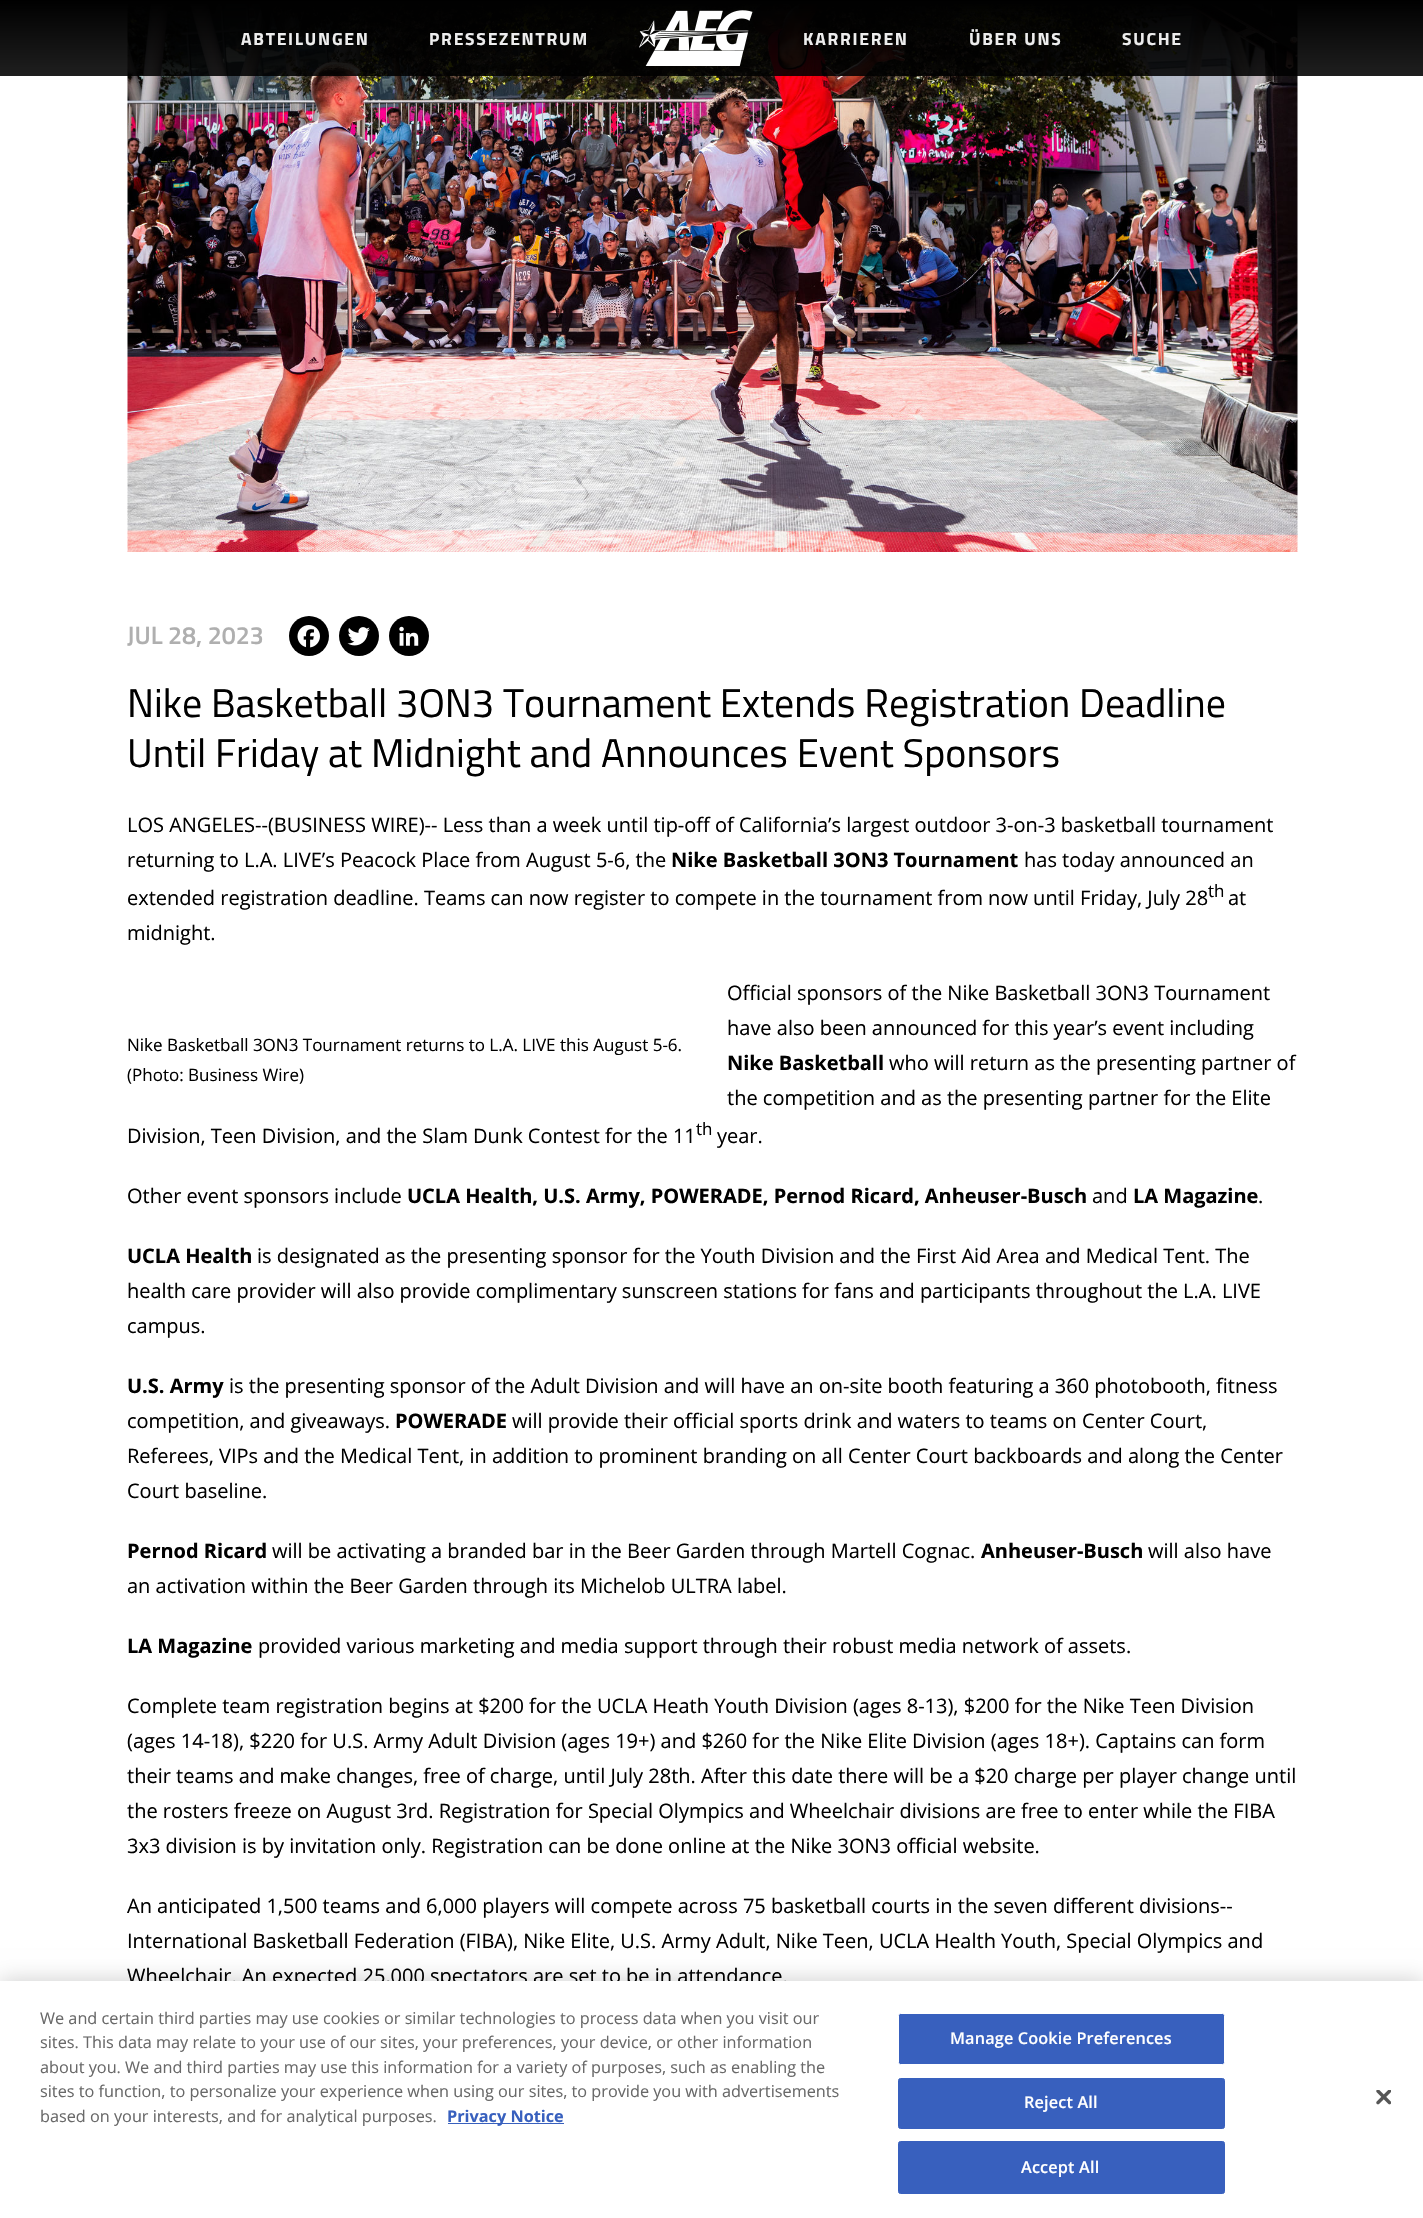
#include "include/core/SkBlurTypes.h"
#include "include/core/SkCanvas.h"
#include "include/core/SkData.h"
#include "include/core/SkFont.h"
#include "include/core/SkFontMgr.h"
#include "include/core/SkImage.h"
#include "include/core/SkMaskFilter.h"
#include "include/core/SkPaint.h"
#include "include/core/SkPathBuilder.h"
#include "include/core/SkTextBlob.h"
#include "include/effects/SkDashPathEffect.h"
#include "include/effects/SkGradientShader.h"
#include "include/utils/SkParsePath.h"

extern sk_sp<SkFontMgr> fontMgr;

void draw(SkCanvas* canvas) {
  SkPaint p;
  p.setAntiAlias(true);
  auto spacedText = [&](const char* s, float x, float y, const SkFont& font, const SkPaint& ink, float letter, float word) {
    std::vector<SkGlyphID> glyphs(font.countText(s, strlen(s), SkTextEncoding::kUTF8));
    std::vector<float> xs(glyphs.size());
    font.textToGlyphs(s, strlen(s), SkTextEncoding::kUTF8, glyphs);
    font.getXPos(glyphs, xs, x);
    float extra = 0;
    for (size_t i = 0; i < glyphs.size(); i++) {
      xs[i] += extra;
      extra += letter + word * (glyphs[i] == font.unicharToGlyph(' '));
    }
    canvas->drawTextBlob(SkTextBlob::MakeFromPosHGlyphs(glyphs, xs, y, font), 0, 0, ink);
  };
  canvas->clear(SK_ColorWHITE);
  canvas->drawImageRect(SkImages::DeferredFromEncodedData(SkData::MakeFromFileName("images/2.png")), SkRect::MakeLTRB(127, 4, 1298, 552), SkSamplingOptions());
  {
    const SkColor colors[] = {SK_ColorBLACK, SkColorSetARGB(224, 0, 0, 0)};
    const float stops[] = {0, 1};
    const SkPoint ends[] = {{712, 0}, {712, 76}};
    p.setShader(SkGradientShader::MakeLinear(ends, colors, stops, 2, SkTileMode::kClamp));
    p.setAlpha(255);
  }
  canvas->drawRect(SkRect::MakeLTRB(0, 0, 1423, 76), p);
  canvas->drawImageRect(SkImages::DeferredFromEncodedData(SkData::MakeFromFileName("images/1.png")), SkRect::MakeLTRB(639, 10, 753, 66), SkSamplingOptions());
  p.setShader(nullptr);
  p.setColor(SK_ColorBLACK);
  canvas->drawCircle(309, 636, 20, p);
  canvas->drawImageRect(SkImages::DeferredFromEncodedData(SkData::MakeFromFileName("images/3.png")), SkRect::MakeLTRB(297, 625, 320, 648), SkSamplingOptions());
  canvas->drawCircle(359, 636, 20, p);
  canvas->drawImageRect(SkImages::DeferredFromEncodedData(SkData::MakeFromFileName("images/4.png")), SkRect::MakeLTRB(347, 627, 370, 646), SkSamplingOptions());
  canvas->drawCircle(409, 636, 20, p);
  canvas->drawImageRect(SkImages::DeferredFromEncodedData(SkData::MakeFromFileName("images/5.png")), SkRect::MakeLTRB(399, 626, 419, 646), SkSamplingOptions());
  p.setColor(SkColorSetARGB(51, 0, 0, 0));
  p.setMaskFilter(SkMaskFilter::MakeBlur(kNormal_SkBlurStyle, 11));
  canvas->drawRect(SkRect::MakeLTRB(0, 1981, 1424, 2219), p);
  p.setMaskFilter(nullptr);
  SkFont font1(fontMgr->matchFamilyStyle("Titillium Web", SkFontStyle::Bold()), 17.5f);
  font1.setSubpixel(true);
  p.setColor(SkColorSetRGB(237, 237, 237));
  spacedText("ABTEILUNGEN", 241, 45, font1, p, 1.75f, 0);
  spacedText("PRESSEZENTRUM", 429, 45, font1, p, 1.75f, 0);
  spacedText("KARRIEREN", 803, 45, font1, p, 1.75f, 0);
  spacedText("ÜBER UNS", 969, 45, font1, p, 1.75f, 0);
  spacedText("SUCHE", 1122, 45, font1, p, 1.75f, 0);
  SkFont font2(fontMgr->matchFamilyStyle("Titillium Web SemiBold", SkFontStyle(600, SkFontStyle::kNormal_Width, SkFontStyle::kUpright_Slant)), 25);
  font2.setSubpixel(true);
  p.setColor(SkColorSetRGB(175, 175, 175));
  canvas->drawString("JUL 28, 2023", 127, 644, font2, p);
  SkFont font3(fontMgr->matchFamilyStyle("Titillium Web", SkFontStyle::Normal()), 40);
  font3.setSubpixel(true);
  p.setColor(SK_ColorBLACK);
  canvas->drawString("Nike Basketball 3ON3 Tournament Extends Registration Deadline", 127, 717, font3, p);
  canvas->drawString("Until Friday at Midnight and Announces Event Sponsors", 127, 767, font3, p);
  SkFont font4(fontMgr->matchFamilyStyle("Open Sans", SkFontStyle::Normal()), 20);
  font4.setSubpixel(true);
  canvas->drawString("LOS ANGELES--(BUSINESS WIRE)-- Less than a week until tip-off of California’s largest outdoor 3-on-3 basketball tournament", 127, 832, font4, p);
  canvas->drawString("returning to L.A. LIVE’s Peacock Place from August 5-6, the", 127, 867, font4, p);
  SkFont font5(fontMgr->matchFamilyStyle("Open Sans", SkFontStyle::Bold()), 20);
  font5.setSubpixel(true);
  canvas->drawString("Nike Basketball 3ON3 Tournament", 671, 867, font5, p);
  canvas->drawString("has today announced an", 1024, 867, font4, p);
  canvas->drawString("extended registration deadline. Teams can now register to compete in the tournament from now until Friday, July 28", 127, 905, font4, p);
  SkFont font6(fontMgr->matchFamilyStyle("Open Sans", SkFontStyle::Normal()), 17);
  font6.setSubpixel(true);
  canvas->drawString("th", 1208, 897, font6, p);
  canvas->drawString("at", 1228, 905, font4, p);
  canvas->drawString("midnight.", 127, 940, font4, p);
  canvas->drawString("Official sponsors of the Nike Basketball 3ON3 Tournament", 727, 1000, font4, p);
  canvas->drawString("have also been announced for this year’s event including", 727, 1035, font4, p);
  canvas->drawString("Nike Basketball", 727, 1070, font5, p);
  canvas->drawString("who will return as the presenting partner of", 889, 1070, font4, p);
  canvas->drawString("the competition and as the presenting partner for the Elite", 727, 1105, font4, p);
  canvas->drawString("Division, Teen Division, and the Slam Dunk Contest for the 11", 127, 1143, font4, p);
  canvas->drawString("th", 696, 1135, font6, p);
  canvas->drawString("year.", 717, 1143, font4, p);
  canvas->drawString("Nike Basketball 3ON3 Tournament returns to L.A. LIVE this August 5-6.", 127, 1051, font6, p);
  canvas->drawString("(Photo: Business Wire)", 127, 1081, font6, p);
  canvas->drawString("Other event sponsors include", 127, 1203, font4, p);
  canvas->drawString("UCLA Health, U.S. Army, POWERADE, Pernod Ricard, Anheuser-Busch", 407, 1203, font5, p);
  canvas->drawString("and", 1092, 1203, font4, p);
  canvas->drawString("LA Magazine", 1133, 1203, font5, p);
  canvas->drawString(".", 1258, 1203, font4, p);
  canvas->drawString("UCLA Health", 127, 1263, font5, p);
  canvas->drawString("is designated as the presenting sponsor for the Youth Division and the First Aid Area and Medical Tent. The", 257, 1263, font4, p);
  canvas->drawString("health care provider will also provide complimentary sunscreen stations for fans and participants throughout the L.A. LIVE", 127, 1298, font4, p);
  canvas->drawString("campus.", 127, 1333, font4, p);
  canvas->drawString("U.S. Army", 127, 1393, font5, p);
  canvas->drawString("is the presenting sponsor of the Adult Division and will have an on-site booth featuring a 360 photobooth, fitness", 229, 1393, font4, p);
  canvas->drawString("competition, and giveaways.", 127, 1428, font4, p);
  canvas->drawString("POWERADE", 395, 1428, font5, p);
  canvas->drawString("will provide their official sports drink and waters to teams on Center Court,", 512, 1428, font4, p);
  canvas->drawString("Referees, VIPs and the Medical Tent, in addition to prominent branding on all Center Court backboards and along the Center", 127, 1463, font4, p);
  canvas->drawString("Court baseline.", 127, 1498, font4, p);
  canvas->drawString("Pernod Ricard", 127, 1558, font5, p);
  canvas->drawString("will be activating a branded bar in the Beer Garden through Martell Cognac.", 272, 1558, font4, p);
  canvas->drawString("Anheuser-Busch", 981, 1558, font5, p);
  canvas->drawString("will also have", 1148, 1558, font4, p);
  canvas->drawString("an activation within the Beer Garden through its Michelob ULTRA label.", 127, 1593, font4, p);
  canvas->drawString("LA Magazine", 127, 1653, font5, p);
  canvas->drawString("provided various marketing and media support through their robust media network of assets.", 258, 1653, font4, p);
  canvas->drawString("Complete team registration begins at $200 for the UCLA Heath Youth Division (ages 8-13), $200 for the Nike Teen Division", 127, 1713, font4, p);
  canvas->drawString("(ages 14-18), $220 for U.S. Army Adult Division (ages 19+) and $260 for the Nike Elite Division (ages 18+). Captains can form", 127, 1748, font4, p);
  canvas->drawString("their teams and make changes, free of charge, until July 28th. After this date there will be a $20 charge per player change until", 127, 1783, font4, p);
  canvas->drawString("the rosters freeze on August 3rd. Registration for Special Olympics and Wheelchair divisions are free to enter while the FIBA", 127, 1818, font4, p);
  canvas->drawString("3x3 division is by invitation only. Registration can be done online at the Nike 3ON3 official website.", 127, 1853, font4, p);
  canvas->drawString("An anticipated 1,500 teams and 6,000 players will compete across 75 basketball courts in the seven different divisions--", 127, 1913, font4, p);
  canvas->drawString("International Basketball Federation (FIBA), Nike Elite, U.S. Army Adult, Nike Teen, UCLA Health Youth, Special Olympics and", 127, 1948, font4, p);
  canvas->drawString("Wheelchair. An expected 25,000 spectators are set to be in attendance.", 127, 1983, font4, p);
  p.setColor(SK_ColorWHITE);
  canvas->drawRect(SkRect::MakeLTRB(0, 1981, 1423, 2218), p);
  SkFont font7(fontMgr->matchFamilyStyle("Open Sans", SkFontStyle::Normal()), 16.25f);
  font7.setSubpixel(true);
  p.setColor(SkColorSetRGB(105, 105, 105));
  canvas->drawString("We and certain third parties may use cookies or similar technologies to process data when you visit our", 40, 2024, font7, p);
  canvas->drawString("sites. This data may relate to your use of our sites, your preferences, your device, or other information", 40, 2048, font7, p);
  canvas->drawString("about you. We and third parties may use this information for a variety of purposes, such as enabling the", 40, 2073, font7, p);
  canvas->drawString("sites to function, to personalize your experience when using our sites, to provide you with advertisements", 40, 2097, font7, p);
  canvas->drawString("based on your interests, and for analytical purposes.", 40, 2122, font7, p);
  p.setColor(SkColorSetRGB(56, 96, 190));
  canvas->drawRect(SkRect::MakeLTRB(448, 2123, 564, 2124), p);
  SkFont font8(fontMgr->matchFamilyStyle("Open Sans", SkFontStyle::Bold()), 16.25f);
  font8.setSubpixel(true);
  canvas->drawString("Privacy Notice", 447, 2122, font8, p);
  canvas->drawRoundRect(SkRect::MakeLTRB(898.5f, 2013.5f, 1224.5f, 2064.5f), 2, 2, p);
  p.setStyle(SkPaint::kStroke_Style);
  p.setStrokeWidth(1);
  p.setColor(SK_ColorWHITE);
  canvas->drawRoundRect(SkRect::MakeLTRB(898.5f, 2013.5f, 1224.5f, 2064.5f), 2, 2, p);
  SkFont font9(fontMgr->matchFamilyStyle("Open Sans", SkFontStyle(600, SkFontStyle::kNormal_Width, SkFontStyle::kUpright_Slant)), 16.25f);
  font9.setSubpixel(true);
  p.setStyle(SkPaint::kFill_Style);
  spacedText("Manage Cookie Preferences", 950, 2044, font9, p, 0.15f, 0);
  p.setColor(SkColorSetRGB(56, 96, 190));
  canvas->drawRoundRect(SkRect::MakeLTRB(898.5f, 2078.5f, 1224.5f, 2128.5f), 2, 2, p);
  p.setStyle(SkPaint::kStroke_Style);
  canvas->drawRoundRect(SkRect::MakeLTRB(898.5f, 2078.5f, 1224.5f, 2128.5f), 2, 2, p);
  p.setStyle(SkPaint::kFill_Style);
  p.setColor(SK_ColorWHITE);
  spacedText("Reject All", 1024, 2108, font9, p, 0.15f, 0);
  p.setColor(SkColorSetRGB(56, 96, 190));
  canvas->drawRoundRect(SkRect::MakeLTRB(898.5f, 2141.5f, 1224.5f, 2193.5f), 2, 2, p);
  p.setStyle(SkPaint::kStroke_Style);
  canvas->drawRoundRect(SkRect::MakeLTRB(898.5f, 2141.5f, 1224.5f, 2193.5f), 2, 2, p);
  p.setStyle(SkPaint::kFill_Style);
  p.setColor(SK_ColorWHITE);
  spacedText("Accept All", 1021, 2173, font9, p, 0.15f, 0);
  canvas->drawImageRect(SkImages::DeferredFromEncodedData(SkData::MakeFromFileName("images/6.png")), SkRect::MakeLTRB(1376, 2090, 1391, 2105), SkSamplingOptions());
}
